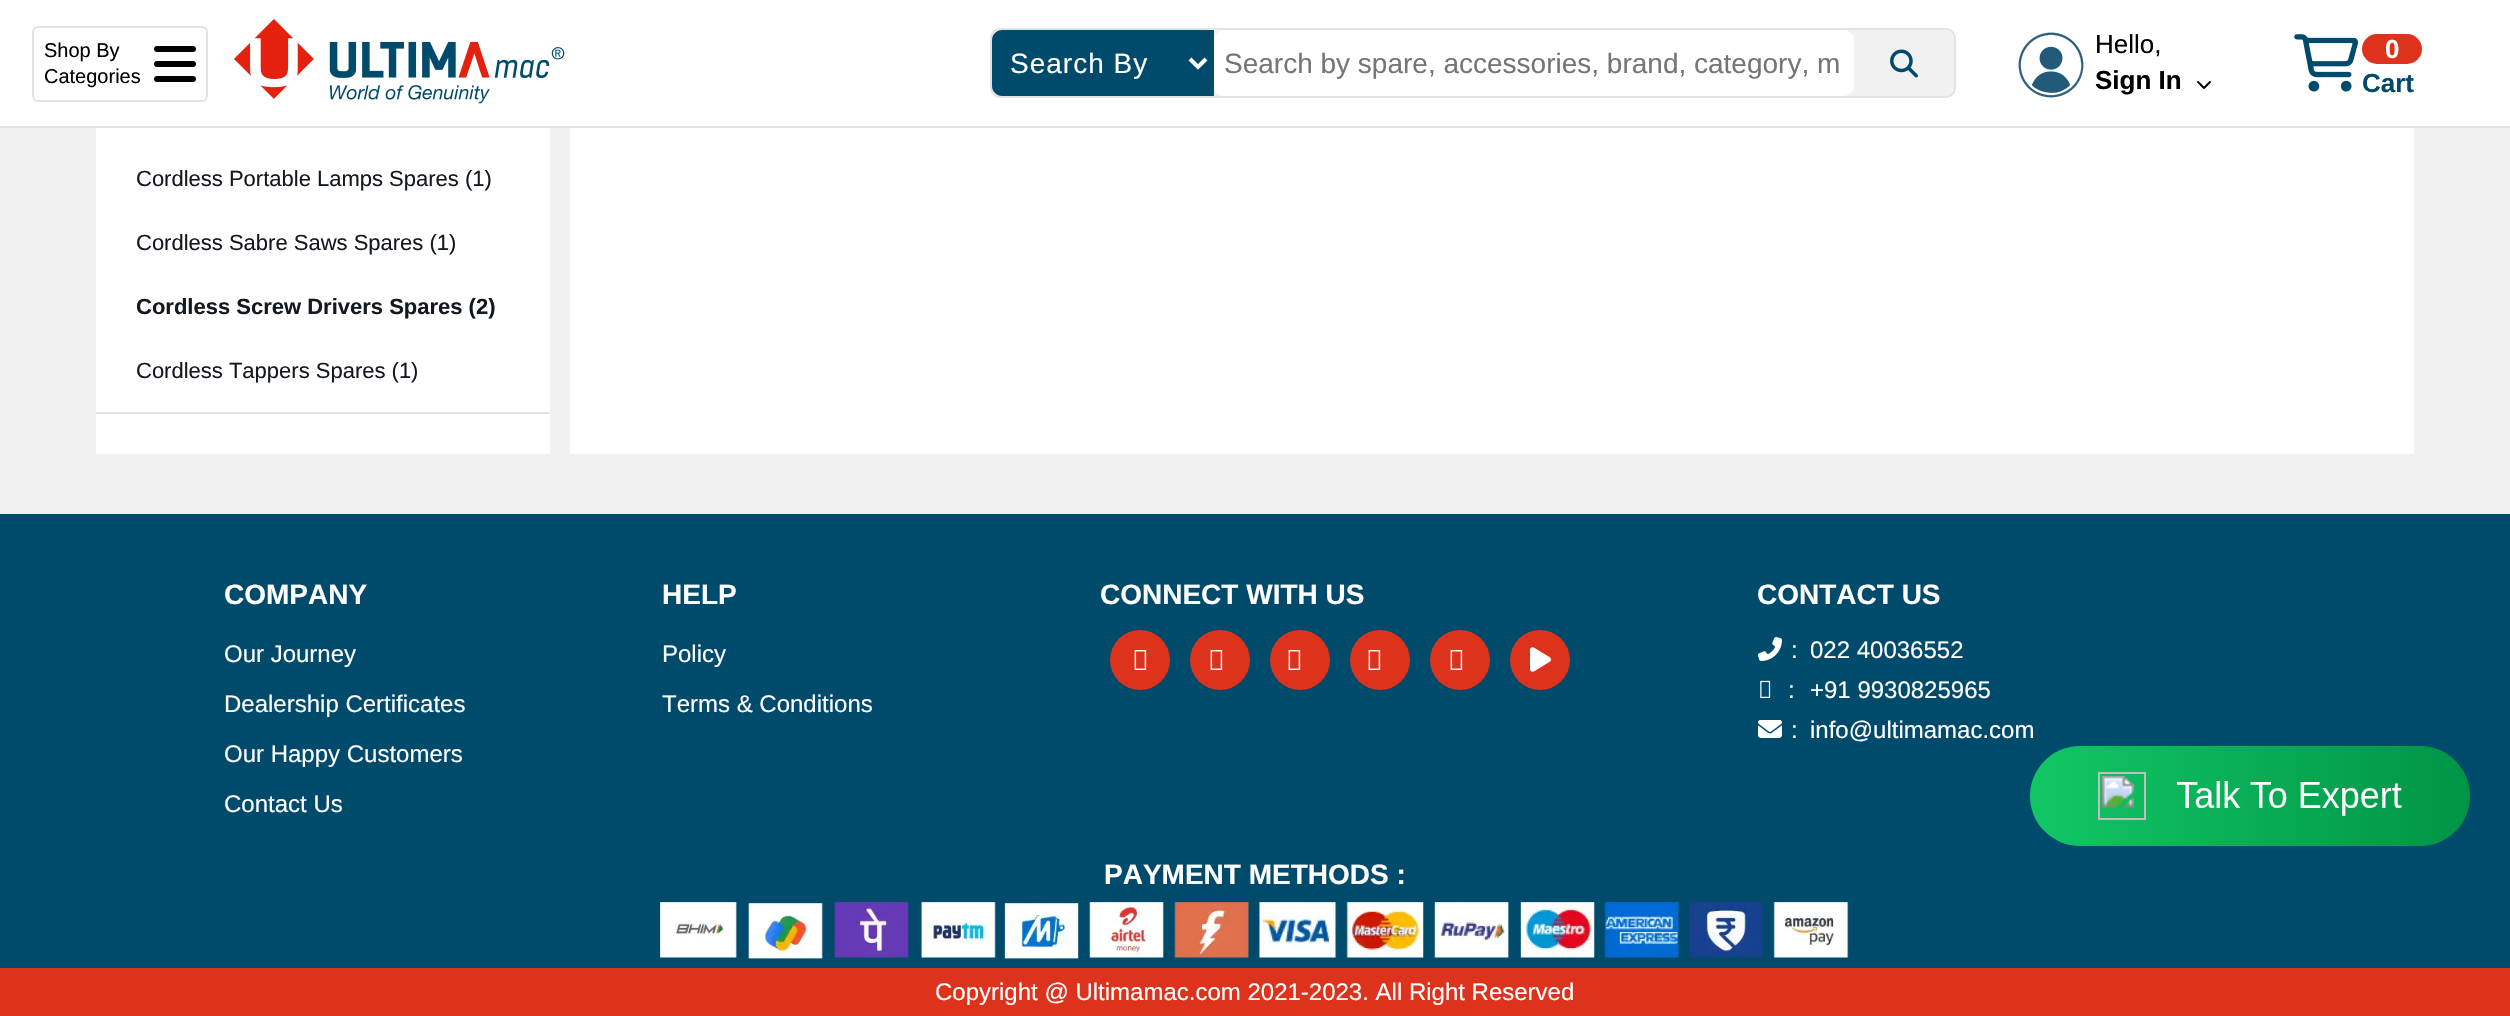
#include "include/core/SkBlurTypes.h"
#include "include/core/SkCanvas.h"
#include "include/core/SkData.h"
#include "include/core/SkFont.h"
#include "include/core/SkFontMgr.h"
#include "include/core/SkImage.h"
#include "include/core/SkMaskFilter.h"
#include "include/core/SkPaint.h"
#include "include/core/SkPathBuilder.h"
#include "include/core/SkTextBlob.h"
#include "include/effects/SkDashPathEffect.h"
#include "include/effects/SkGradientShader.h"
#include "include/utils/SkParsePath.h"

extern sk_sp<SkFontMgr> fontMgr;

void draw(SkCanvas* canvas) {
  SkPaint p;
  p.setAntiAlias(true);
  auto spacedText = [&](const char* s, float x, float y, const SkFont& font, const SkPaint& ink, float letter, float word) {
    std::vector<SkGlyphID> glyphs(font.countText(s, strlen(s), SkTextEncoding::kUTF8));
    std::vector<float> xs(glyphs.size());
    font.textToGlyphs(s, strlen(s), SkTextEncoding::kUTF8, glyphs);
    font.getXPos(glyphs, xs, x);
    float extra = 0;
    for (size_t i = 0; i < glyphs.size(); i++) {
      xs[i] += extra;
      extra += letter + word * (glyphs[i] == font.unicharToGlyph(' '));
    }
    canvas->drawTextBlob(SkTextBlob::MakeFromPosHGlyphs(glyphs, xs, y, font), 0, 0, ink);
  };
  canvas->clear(SkColorSetRGB(241, 241, 241));
  p.setColor(SK_ColorWHITE);
  canvas->drawRect(SkRect::MakeLTRB(0, 0, 2510, 126), p);
  p.setColor(SkColorSetRGB(227, 227, 227));
  canvas->drawRect(SkRect::MakeLTRB(0, 126, 2510, 128), p);
  p.setStyle(SkPaint::kStroke_Style);
  p.setStrokeWidth(2);
  canvas->drawRoundRect(SkRect::MakeLTRB(33, 27, 207, 101), 5, 5, p);
  canvas->drawImageRect(SkImages::DeferredFromEncodedData(SkData::MakeFromFileName("images/1.png")), SkRect::MakeLTRB(154, 46, 196, 82), SkSamplingOptions());
  canvas->drawImageRect(SkImages::DeferredFromEncodedData(SkData::MakeFromFileName("images/2.png")), SkRect::MakeLTRB(234, 19, 565, 104), SkSamplingOptions());
  p.setStyle(SkPaint::kFill_Style);
  p.setColor(SkColorSetRGB(241, 241, 241));
  canvas->drawRoundRect(SkRect::MakeLTRB(991, 29, 1955, 97), 9, 9, p);
  p.setStyle(SkPaint::kStroke_Style);
  p.setColor(SkColorSetRGB(227, 227, 227));
  canvas->drawRoundRect(SkRect::MakeLTRB(991, 29, 1955, 97), 9, 9, p);
  p.setStyle(SkPaint::kFill_Style);
  p.setColor(SkColorSetRGB(0, 74, 108));
  canvas->drawPath(SkPathBuilder().moveTo(1002, 30).lineTo(1214, 30).lineTo(1214, 96).lineTo(1002, 96).cubicTo(996.5f, 96, 992, 91.5f, 992, 86).lineTo(992, 40).cubicTo(992, 34.5f, 996.5f, 30, 1002, 30).close().detach(), p);
  p.setStyle(SkPaint::kStroke_Style);
  p.setStrokeWidth(4);
  p.setColor(SK_ColorWHITE);
  canvas->drawPath(SkPathBuilder().moveTo(1190, 59).lineTo(1198, 67).lineTo(1206, 59).detach(), p);
  p.setStyle(SkPaint::kFill_Style);
  canvas->drawRoundRect(SkRect::MakeLTRB(1214, 30, 1854, 96), 10, 10, p);
  canvas->drawImageRect(SkImages::DeferredFromEncodedData(SkData::MakeFromFileName("images/3.png")), SkRect::MakeLTRB(1890, 49, 1918, 78), SkSamplingOptions());
  canvas->drawImageRect(SkImages::DeferredFromEncodedData(SkData::MakeFromFileName("images/4.png")), SkRect::MakeLTRB(2018, 32, 2084, 98), SkSamplingOptions());
  canvas->drawImageRect(SkImages::DeferredFromEncodedData(SkData::MakeFromFileName("images/5.png")), SkRect::MakeLTRB(2197, 81, 2211, 89), SkSamplingOptions());
  p.setColor(SkColorSetRGB(221, 51, 28));
  canvas->drawRoundRect(SkRect::MakeLTRB(2362, 34, 2422, 64), 15, 15, p);
  canvas->drawImageRect(SkImages::DeferredFromEncodedData(SkData::MakeFromFileName("images/6.png")), SkRect::MakeLTRB(2294, 34, 2359, 92), SkSamplingOptions());
  p.setColor(SK_ColorWHITE);
  canvas->drawRect(SkRect::MakeLTRB(96, 128, 550, 454), p);
  p.setColor(SkColorSetRGB(227, 227, 227));
  canvas->drawRect(SkRect::MakeLTRB(96, 412, 550, 414), p);
  p.setColor(SK_ColorWHITE);
  canvas->drawRect(SkRect::MakeLTRB(570, 128, 2414, 454), p);
  p.setColor(SkColorSetRGB(0, 74, 108));
  canvas->drawRect(SkRect::MakeLTRB(0, 514, 2510, 968), p);
  p.setColor(SkColorSetRGB(221, 51, 28));
  canvas->drawCircle(1140, 660, 30, p);
  canvas->drawImageRect(SkImages::DeferredFromEncodedData(SkData::MakeFromFileName("images/7.png")), SkRect::MakeLTRB(1134, 650, 1147, 670), SkSamplingOptions());
  canvas->drawCircle(1220, 660, 30, p);
  canvas->drawImageRect(SkImages::DeferredFromEncodedData(SkData::MakeFromFileName("images/7.png")), SkRect::MakeLTRB(1210, 650, 1223, 670), SkSamplingOptions());
  canvas->drawCircle(1300, 660, 30, p);
  canvas->drawImageRect(SkImages::DeferredFromEncodedData(SkData::MakeFromFileName("images/7.png")), SkRect::MakeLTRB(1288, 650, 1301, 670), SkSamplingOptions());
  canvas->drawCircle(1380, 660, 30, p);
  canvas->drawImageRect(SkImages::DeferredFromEncodedData(SkData::MakeFromFileName("images/7.png")), SkRect::MakeLTRB(1368, 650, 1381, 670), SkSamplingOptions());
  canvas->drawCircle(1460, 660, 30, p);
  canvas->drawImageRect(SkImages::DeferredFromEncodedData(SkData::MakeFromFileName("images/7.png")), SkRect::MakeLTRB(1450, 650, 1463, 670), SkSamplingOptions());
  canvas->drawCircle(1540, 660, 30, p);
  canvas->drawImageRect(SkImages::DeferredFromEncodedData(SkData::MakeFromFileName("images/8.png")), SkRect::MakeLTRB(1530, 647, 1551, 672), SkSamplingOptions());
  canvas->drawImageRect(SkImages::DeferredFromEncodedData(SkData::MakeFromFileName("images/9.png")), SkRect::MakeLTRB(1758, 637, 1782, 661), SkSamplingOptions());
  canvas->drawImageRect(SkImages::DeferredFromEncodedData(SkData::MakeFromFileName("images/10.png")), SkRect::MakeLTRB(1760, 680, 1771, 698), SkSamplingOptions());
  canvas->drawImageRect(SkImages::DeferredFromEncodedData(SkData::MakeFromFileName("images/11.png")), SkRect::MakeLTRB(1758, 720, 1782, 738), SkSamplingOptions());
  canvas->drawImageRect(SkImages::DeferredFromEncodedData(SkData::MakeFromFileName("images/12.png")), SkRect::MakeLTRB(660, 902, 1849, 959), SkSamplingOptions());
  canvas->drawRect(SkRect::MakeLTRB(0, 968, 2510, 1016), p);
  canvas->drawImageRect(SkImages::DeferredFromEncodedData(SkData::MakeFromFileName("images/13.png")), SkRect::MakeLTRB(2030, 746, 2470, 846), SkSamplingOptions());
  SkFont font1(fontMgr->matchFamilyStyle("Liberation Sans", SkFontStyle::Normal()), 20);
  font1.setSubpixel(true);
  p.setColor(SK_ColorBLACK);
  canvas->drawString("Shop By", 44, 57, font1, p);
  canvas->drawString("Categories", 44, 83, font1, p);
  SkFont font2(fontMgr->matchFamilyStyle("Liberation Sans", SkFontStyle::Normal()), 28);
  font2.setSubpixel(true);
  p.setColor(SK_ColorWHITE);
  spacedText("Search By", 1010, 73, font2, p, 1, 0);
  p.setColor(SkColorSetRGB(117, 117, 117));
  canvas->drawString("Search by spare, accessories, brand, category, m", 1224, 73, font2, p);
  SkFont font3(fontMgr->matchFamilyStyle("Liberation Sans", SkFontStyle::Normal()), 26);
  font3.setSubpixel(true);
  p.setColor(SK_ColorBLACK);
  canvas->drawString("Hello,", 2095, 53, font3, p);
  SkFont font4(fontMgr->matchFamilyStyle("Liberation Sans", SkFontStyle::Bold()), 26);
  font4.setSubpixel(true);
  canvas->drawString("Sign In", 2095, 89, font4, p);
  p.setColor(SK_ColorWHITE);
  canvas->drawString("0", 2385, 58, font4, p);
  p.setColor(SkColorSetRGB(0, 74, 108));
  canvas->drawString("Cart", 2362, 92, font4, p);
  SkFont font5(fontMgr->matchFamilyStyle("Liberation Sans", SkFontStyle::Normal()), 22);
  font5.setSubpixel(true);
  p.setColor(SkColorSetRGB(19, 25, 33));
  canvas->drawString("Cordless Portable Lamps Spares (1)", 136, 186, font5, p);
  canvas->drawString("Cordless Sabre Saws Spares (1)", 136, 250, font5, p);
  SkFont font6(fontMgr->matchFamilyStyle("Liberation Sans", SkFontStyle::Bold()), 22);
  font6.setSubpixel(true);
  canvas->drawString("Cordless Screw Drivers Spares (2)", 136, 314, font6, p);
  canvas->drawString("Cordless Tappers Spares (1)", 136, 378, font5, p);
  SkFont font7(fontMgr->matchFamilyStyle("Liberation Sans", SkFontStyle::Bold()), 28);
  font7.setSubpixel(true);
  p.setColor(SK_ColorWHITE);
  canvas->drawString("COMPANY", 224, 604, font7, p);
  SkFont font8(fontMgr->matchFamilyStyle("Liberation Sans", SkFontStyle::Normal()), 24);
  font8.setSubpixel(true);
  canvas->drawString("Our Journey", 224, 662, font8, p);
  canvas->drawString("Dealership Certificates", 224, 712, font8, p);
  canvas->drawString("Our Happy Customers", 224, 762, font8, p);
  canvas->drawString("Contact Us", 224, 812, font8, p);
  canvas->drawString("HELP", 662, 604, font7, p);
  canvas->drawString("Policy", 662, 662, font8, p);
  canvas->drawString("Terms & Conditions", 662, 712, font8, p);
  canvas->drawString("CONNECT WITH US", 1100, 604, font7, p);
  canvas->drawString("CONTACT US", 1757, 604, font7, p);
  canvas->drawString(":", 1791, 658, font8, p);
  canvas->drawString(":", 1788, 698, font8, p);
  canvas->drawString(":", 1791, 738, font8, p);
  canvas->drawString("022 40036552", 1810, 658, font8, p);
  canvas->drawString("+91 9930825965", 1810, 698, font8, p);
  canvas->drawString("info@ultimamac.com", 1810, 738, font8, p);
  canvas->drawString("PAYMENT METHODS :", 1104, 884, font7, p);
  canvas->drawString("Copyright @ Ultimamac.com 2021-2023. All Right Reserved", 935, 1000, font8, p);
}
